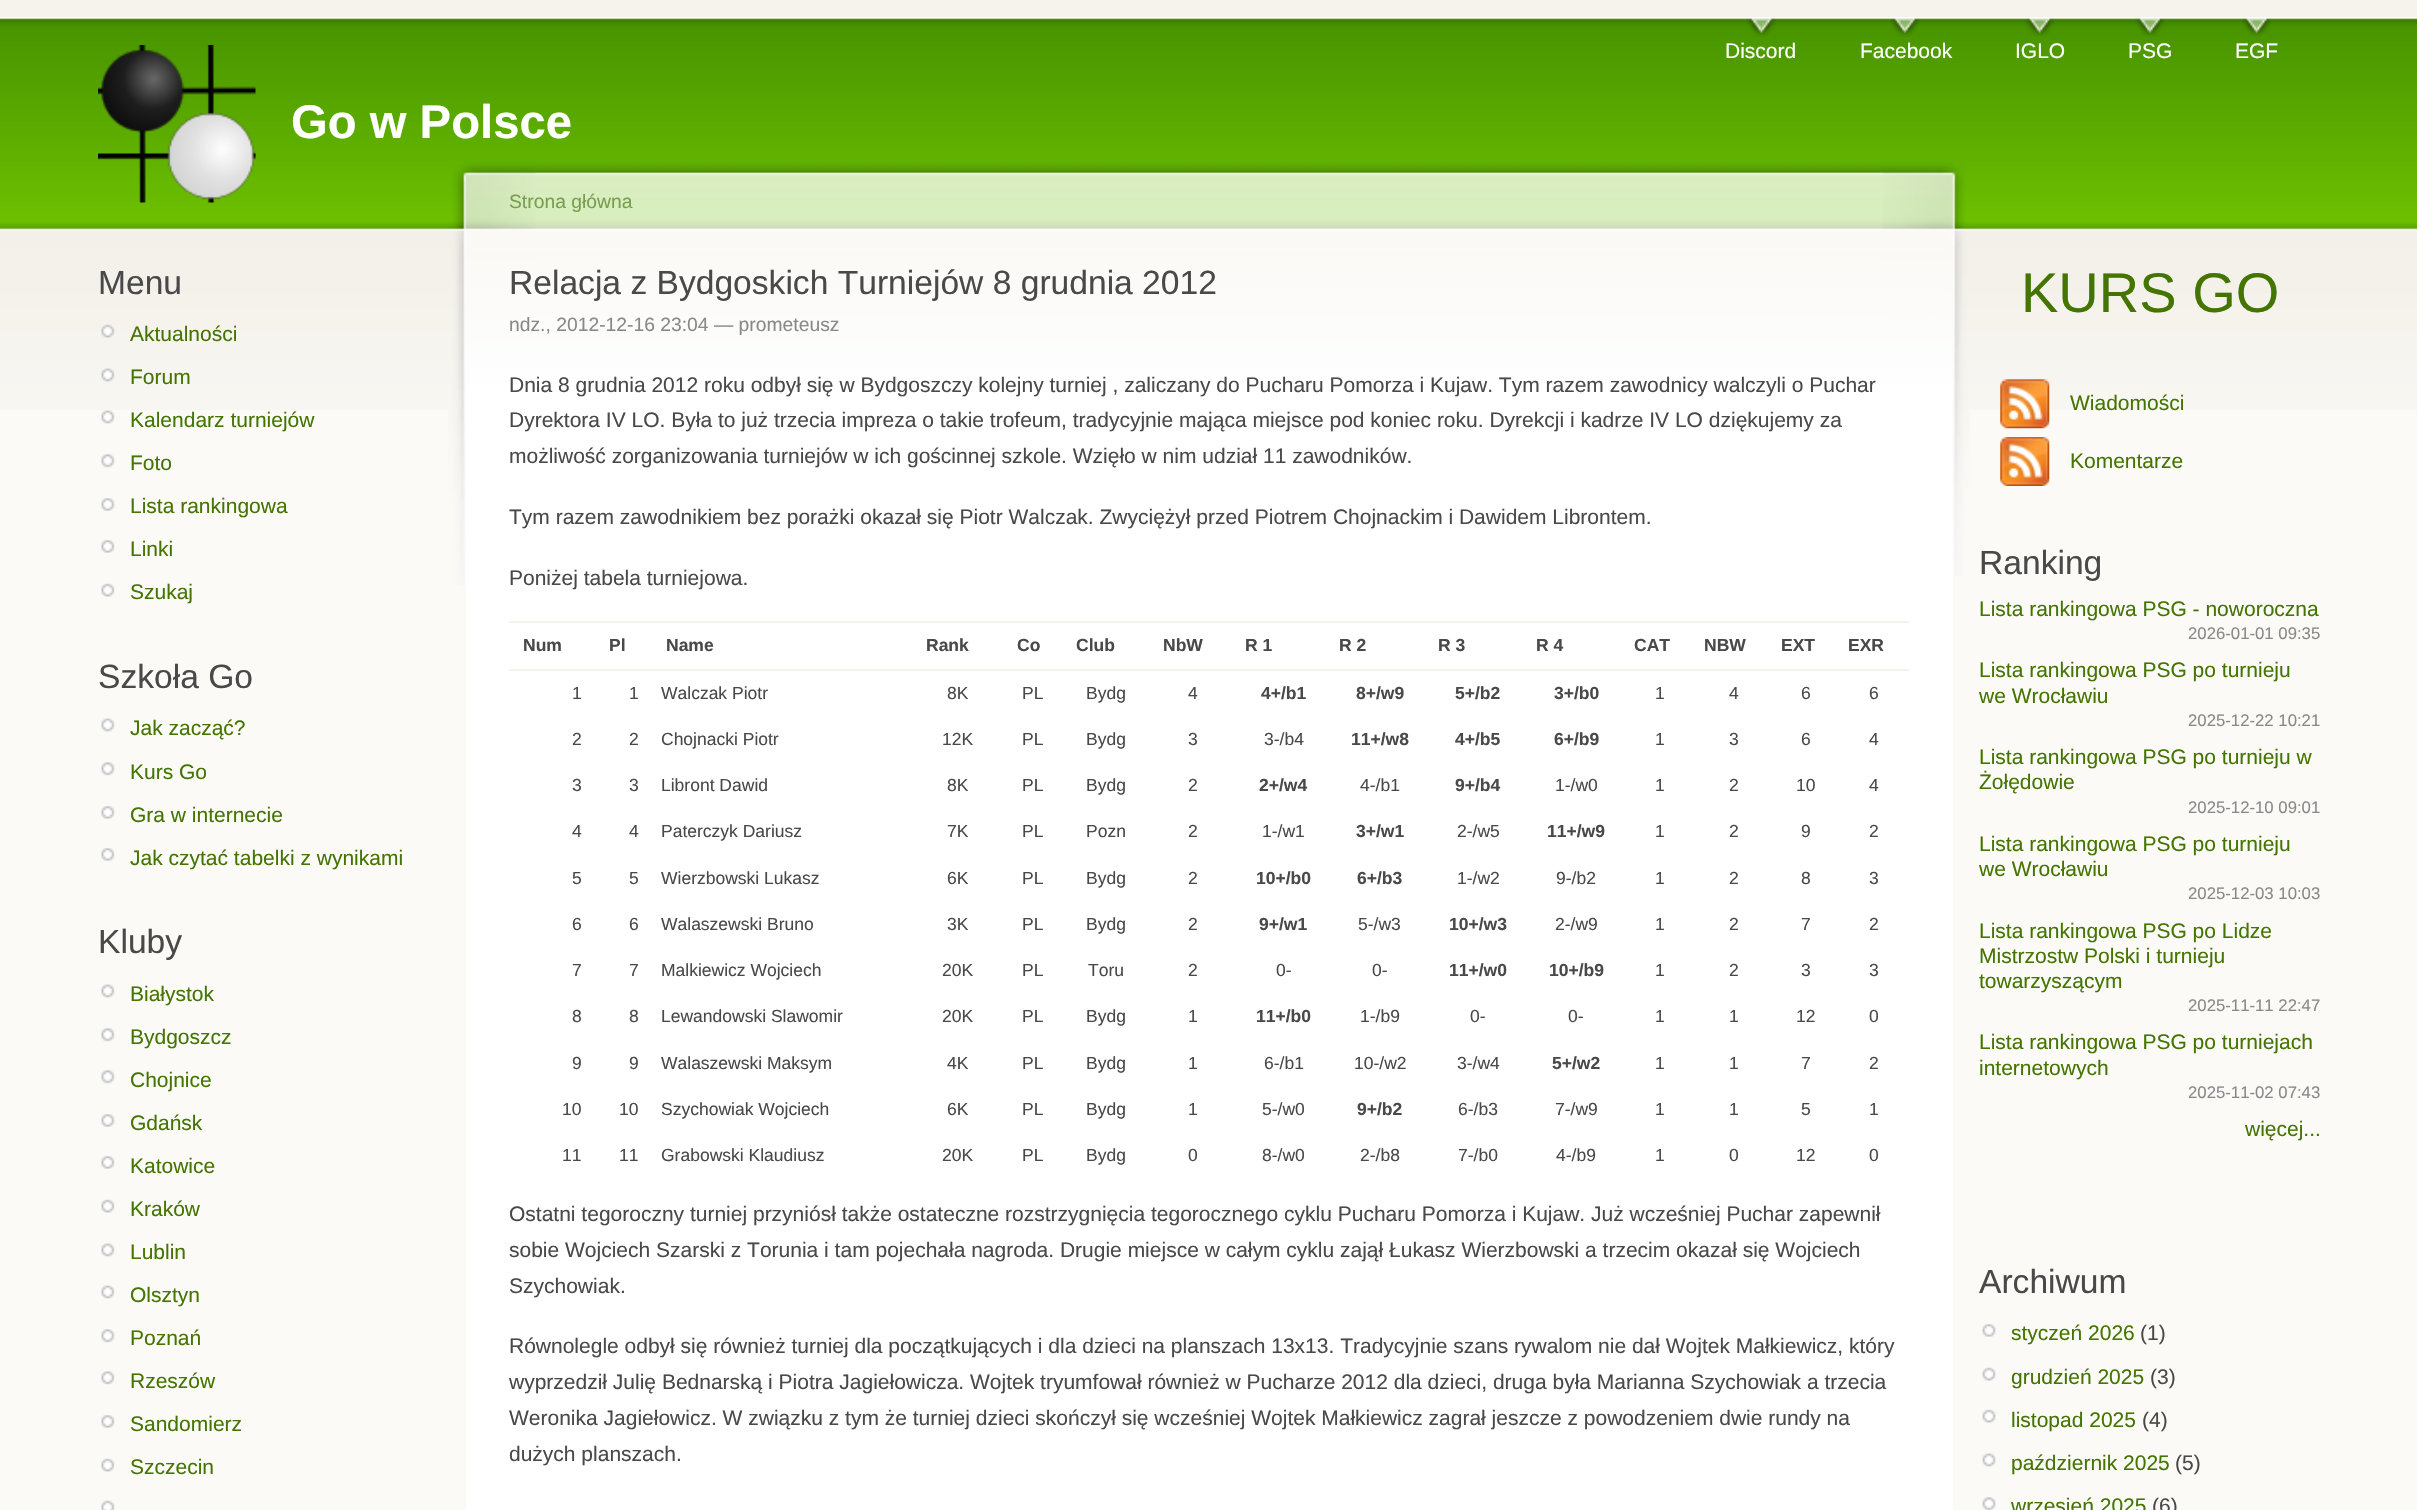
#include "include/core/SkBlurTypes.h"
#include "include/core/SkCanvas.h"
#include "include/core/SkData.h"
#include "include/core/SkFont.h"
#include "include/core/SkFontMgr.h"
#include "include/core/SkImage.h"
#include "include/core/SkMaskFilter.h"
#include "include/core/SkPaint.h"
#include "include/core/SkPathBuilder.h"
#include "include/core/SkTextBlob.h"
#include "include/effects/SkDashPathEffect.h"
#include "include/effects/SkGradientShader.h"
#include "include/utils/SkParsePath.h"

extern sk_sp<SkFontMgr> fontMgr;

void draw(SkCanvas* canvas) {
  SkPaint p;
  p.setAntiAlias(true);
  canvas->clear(SkColorSetRGB(251, 250, 247));
  p.setColor(SkColorSetRGB(245, 243, 236));
  canvas->drawRect(SkRect::MakeLTRB(0, 0, 2417, 17), p);
  canvas->drawImageRect(SkImages::DeferredFromEncodedData(SkData::MakeFromFileName("images/1.png")), SkRect::MakeLTRB(0, 17, 2417, 410), SkSamplingOptions());
  canvas->drawImageRect(SkImages::DeferredFromEncodedData(SkData::MakeFromFileName("images/2.png")), SkRect::MakeLTRB(1747, 18, 1776, 37), SkSamplingOptions());
  canvas->drawImageRect(SkImages::DeferredFromEncodedData(SkData::MakeFromFileName("images/3.png")), SkRect::MakeLTRB(1890, 18, 1920, 37), SkSamplingOptions());
  canvas->drawImageRect(SkImages::DeferredFromEncodedData(SkData::MakeFromFileName("images/4.png")), SkRect::MakeLTRB(2025, 18, 2054, 37), SkSamplingOptions());
  canvas->drawImageRect(SkImages::DeferredFromEncodedData(SkData::MakeFromFileName("images/5.png")), SkRect::MakeLTRB(2135, 18, 2165, 37), SkSamplingOptions());
  canvas->drawImageRect(SkImages::DeferredFromEncodedData(SkData::MakeFromFileName("images/4.png")), SkRect::MakeLTRB(2242, 18, 2271, 37), SkSamplingOptions());
  canvas->drawImageRect(SkImages::DeferredFromEncodedData(SkData::MakeFromFileName("images/6.png")), SkRect::MakeLTRB(98, 45, 256, 203), SkSamplingOptions());
  canvas->drawImageRect(SkImages::DeferredFromEncodedData(SkData::MakeFromFileName("images/7.png")), SkRect::MakeLTRB(101, 324, 115, 338), SkSamplingOptions());
  canvas->drawImageRect(SkImages::DeferredFromEncodedData(SkData::MakeFromFileName("images/8.png")), SkRect::MakeLTRB(101, 368, 115, 382), SkSamplingOptions());
  canvas->drawImageRect(SkImages::DeferredFromEncodedData(SkData::MakeFromFileName("images/9.png")), SkRect::MakeLTRB(101, 410, 115, 424), SkSamplingOptions());
  canvas->drawImageRect(SkImages::DeferredFromEncodedData(SkData::MakeFromFileName("images/10.png")), SkRect::MakeLTRB(101, 454, 115, 468), SkSamplingOptions());
  canvas->drawImageRect(SkImages::DeferredFromEncodedData(SkData::MakeFromFileName("images/11.png")), SkRect::MakeLTRB(101, 498, 115, 511), SkSamplingOptions());
  canvas->drawImageRect(SkImages::DeferredFromEncodedData(SkData::MakeFromFileName("images/11.png")), SkRect::MakeLTRB(101, 540, 115, 553), SkSamplingOptions());
  canvas->drawImageRect(SkImages::DeferredFromEncodedData(SkData::MakeFromFileName("images/12.png")), SkRect::MakeLTRB(101, 583, 115, 597), SkSamplingOptions());
  canvas->drawImageRect(SkImages::DeferredFromEncodedData(SkData::MakeFromFileName("images/9.png")), SkRect::MakeLTRB(101, 718, 115, 732), SkSamplingOptions());
  canvas->drawImageRect(SkImages::DeferredFromEncodedData(SkData::MakeFromFileName("images/10.png")), SkRect::MakeLTRB(101, 762, 115, 776), SkSamplingOptions());
  canvas->drawImageRect(SkImages::DeferredFromEncodedData(SkData::MakeFromFileName("images/11.png")), SkRect::MakeLTRB(101, 806, 115, 819), SkSamplingOptions());
  canvas->drawImageRect(SkImages::DeferredFromEncodedData(SkData::MakeFromFileName("images/11.png")), SkRect::MakeLTRB(101, 848, 115, 861), SkSamplingOptions());
  canvas->drawImageRect(SkImages::DeferredFromEncodedData(SkData::MakeFromFileName("images/9.png")), SkRect::MakeLTRB(101, 984, 115, 998), SkSamplingOptions());
  canvas->drawImageRect(SkImages::DeferredFromEncodedData(SkData::MakeFromFileName("images/10.png")), SkRect::MakeLTRB(101, 1028, 115, 1042), SkSamplingOptions());
  canvas->drawImageRect(SkImages::DeferredFromEncodedData(SkData::MakeFromFileName("images/10.png")), SkRect::MakeLTRB(101, 1070, 115, 1084), SkSamplingOptions());
  canvas->drawImageRect(SkImages::DeferredFromEncodedData(SkData::MakeFromFileName("images/11.png")), SkRect::MakeLTRB(101, 1114, 115, 1127), SkSamplingOptions());
  canvas->drawImageRect(SkImages::DeferredFromEncodedData(SkData::MakeFromFileName("images/11.png")), SkRect::MakeLTRB(101, 1156, 115, 1169), SkSamplingOptions());
  canvas->drawImageRect(SkImages::DeferredFromEncodedData(SkData::MakeFromFileName("images/12.png")), SkRect::MakeLTRB(101, 1199, 115, 1213), SkSamplingOptions());
  canvas->drawImageRect(SkImages::DeferredFromEncodedData(SkData::MakeFromFileName("images/9.png")), SkRect::MakeLTRB(101, 1243, 115, 1257), SkSamplingOptions());
  canvas->drawImageRect(SkImages::DeferredFromEncodedData(SkData::MakeFromFileName("images/9.png")), SkRect::MakeLTRB(101, 1285, 115, 1299), SkSamplingOptions());
  canvas->drawImageRect(SkImages::DeferredFromEncodedData(SkData::MakeFromFileName("images/10.png")), SkRect::MakeLTRB(101, 1329, 115, 1343), SkSamplingOptions());
  canvas->drawImageRect(SkImages::DeferredFromEncodedData(SkData::MakeFromFileName("images/10.png")), SkRect::MakeLTRB(101, 1371, 115, 1385), SkSamplingOptions());
  canvas->drawImageRect(SkImages::DeferredFromEncodedData(SkData::MakeFromFileName("images/11.png")), SkRect::MakeLTRB(101, 1415, 115, 1428), SkSamplingOptions());
  canvas->drawImageRect(SkImages::DeferredFromEncodedData(SkData::MakeFromFileName("images/12.png")), SkRect::MakeLTRB(101, 1458, 115, 1472), SkSamplingOptions());
  canvas->drawImageRect(SkImages::DeferredFromEncodedData(SkData::MakeFromFileName("images/13.png")), SkRect::MakeLTRB(101, 1500, 115, 1510), SkSamplingOptions());
  p.setColor(SK_ColorWHITE);
  canvas->drawRect(SkRect::MakeLTRB(466, 507, 1953, 1510), p);
  canvas->drawImageRect(SkImages::DeferredFromEncodedData(SkData::MakeFromFileName("images/14.png")), SkRect::MakeLTRB(465, 158, 1953, 507), SkSamplingOptions());
  canvas->drawImageRect(SkImages::DeferredFromEncodedData(SkData::MakeFromFileName("images/15.png")), SkRect::MakeLTRB(1883, 165, 1970, 576), SkSamplingOptions());
  canvas->drawImageRect(SkImages::DeferredFromEncodedData(SkData::MakeFromFileName("images/16.png")), SkRect::MakeLTRB(448, 164, 536, 586), SkSamplingOptions());
  p.setColor(SkColorSetRGB(246, 243, 237));
  canvas->drawRect(SkRect::MakeLTRB(509, 621, 1909, 623), p);
  canvas->drawRect(SkRect::MakeLTRB(509, 669, 1909, 671), p);
  canvas->drawImageRect(SkImages::DeferredFromEncodedData(SkData::MakeFromFileName("images/17.png")), SkRect::MakeLTRB(2000, 379, 2050, 429), SkSamplingOptions());
  canvas->drawImageRect(SkImages::DeferredFromEncodedData(SkData::MakeFromFileName("images/18.png")), SkRect::MakeLTRB(2000, 437, 2050, 486), SkSamplingOptions());
  canvas->drawImageRect(SkImages::DeferredFromEncodedData(SkData::MakeFromFileName("images/19.png")), SkRect::MakeLTRB(1982, 1324, 1996, 1337), SkSamplingOptions());
  canvas->drawImageRect(SkImages::DeferredFromEncodedData(SkData::MakeFromFileName("images/20.png")), SkRect::MakeLTRB(1982, 1367, 1996, 1381), SkSamplingOptions());
  canvas->drawImageRect(SkImages::DeferredFromEncodedData(SkData::MakeFromFileName("images/20.png")), SkRect::MakeLTRB(1982, 1409, 1996, 1423), SkSamplingOptions());
  canvas->drawImageRect(SkImages::DeferredFromEncodedData(SkData::MakeFromFileName("images/21.png")), SkRect::MakeLTRB(1982, 1453, 1996, 1467), SkSamplingOptions());
  canvas->drawImageRect(SkImages::DeferredFromEncodedData(SkData::MakeFromFileName("images/22.png")), SkRect::MakeLTRB(1982, 1497, 1996, 1510), SkSamplingOptions());
  SkFont font1(fontMgr->matchFamilyStyle("Liberation Sans", SkFontStyle::Normal()), 21);
  font1.setSubpixel(true);
  p.setColor(SK_ColorWHITE);
  canvas->drawString("Discord", 1725, 58, font1, p);
  canvas->drawString("Facebook", 1860, 58, font1, p);
  canvas->drawString("IGLO", 2015, 58, font1, p);
  canvas->drawString("PSG", 2128, 58, font1, p);
  canvas->drawString("EGF", 2235, 58, font1, p);
  SkFont font2(fontMgr->matchFamilyStyle("Liberation Sans", SkFontStyle::Bold()), 47.25f);
  font2.setSubpixel(true);
  canvas->drawString("Go w Polsce", 291, 138, font2, p);
  SkFont font3(fontMgr->matchFamilyStyle("Liberation Sans", SkFontStyle::Normal()), 33.6f);
  font3.setSubpixel(true);
  p.setColor(SkColorSetRGB(73, 73, 73));
  canvas->drawString("Menu", 98, 294, font3, p);
  p.setColor(SkColorSetRGB(69, 117, 1));
  canvas->drawString("Aktualności", 130, 341, font1, p);
  canvas->drawString("Forum", 130, 384, font1, p);
  canvas->drawString("Kalendarz turniejów", 130, 427, font1, p);
  canvas->drawString("Foto", 130, 470, font1, p);
  canvas->drawString("Lista rankingowa", 130, 513, font1, p);
  canvas->drawString("Linki", 130, 556, font1, p);
  canvas->drawString("Szukaj", 130, 599, font1, p);
  p.setColor(SkColorSetRGB(73, 73, 73));
  canvas->drawString("Szkoła Go", 98, 688, font3, p);
  p.setColor(SkColorSetRGB(69, 117, 1));
  canvas->drawString("Jak zacząć?", 130, 735, font1, p);
  canvas->drawString("Kurs Go", 130, 779, font1, p);
  canvas->drawString("Gra w internecie", 130, 822, font1, p);
  canvas->drawString("Jak czytać tabelki z wynikami", 130, 865, font1, p);
  p.setColor(SkColorSetRGB(73, 73, 73));
  canvas->drawString("Kluby", 98, 953, font3, p);
  p.setColor(SkColorSetRGB(69, 117, 1));
  canvas->drawString("Białystok", 130, 1001, font1, p);
  canvas->drawString("Bydgoszcz", 130, 1044, font1, p);
  canvas->drawString("Chojnice", 130, 1087, font1, p);
  canvas->drawString("Gdańsk", 130, 1130, font1, p);
  canvas->drawString("Katowice", 130, 1173, font1, p);
  canvas->drawString("Kraków", 130, 1216, font1, p);
  canvas->drawString("Lublin", 130, 1259, font1, p);
  canvas->drawString("Olsztyn", 130, 1302, font1, p);
  canvas->drawString("Poznań", 130, 1345, font1, p);
  canvas->drawString("Rzeszów", 130, 1388, font1, p);
  canvas->drawString("Sandomierz", 130, 1431, font1, p);
  canvas->drawString("Szczecin", 130, 1474, font1, p);
  SkFont font4(fontMgr->matchFamilyStyle("Liberation Sans", SkFontStyle::Normal()), 19.3f);
  font4.setSubpixel(true);
  p.setColor(SkColorSetRGB(120, 158, 80));
  canvas->drawString("Strona główna", 509, 208, font4, p);
  p.setColor(SkColorSetRGB(73, 73, 73));
  canvas->drawString("Relacja z Bydgoskich Turniejów 8 grudnia 2012", 509, 294, font3, p);
  p.setColor(SkColorSetRGB(137, 137, 137));
  canvas->drawString("ndz., 2012-12-16 23:04 — prometeusz", 509, 331, font4, p);
  p.setColor(SkColorSetRGB(73, 73, 73));
  canvas->drawString("Dnia 8 grudnia 2012 roku odbył się w Bydgoszczy kolejny turniej , zaliczany do Pucharu Pomorza i Kujaw. Tym razem zawodnicy walczyli o Puchar", 509, 392, font1, p);
  canvas->drawString("Dyrektora IV LO. Była to już trzecia impreza o takie trofeum, tradycyjnie mająca miejsce pod koniec roku. Dyrekcji i kadrze IV LO dziękujemy za", 509, 427, font1, p);
  canvas->drawString("możliwość zorganizowania turniejów w ich gościnnej szkole. Wzięło w nim udział 11 zawodników.", 509, 463, font1, p);
  canvas->drawString("Tym razem zawodnikiem bez porażki okazał się Piotr Walczak. Zwyciężył przed Piotrem Chojnackim i Dawidem Librontem.", 509, 524, font1, p);
  canvas->drawString("Poniżej tabela turniejowa.", 509, 585, font1, p);
  SkFont font5(fontMgr->matchFamilyStyle("Liberation Sans", SkFontStyle::Bold()), 17.5f);
  font5.setSubpixel(true);
  canvas->drawString("Num", 523, 651, font5, p);
  canvas->drawString("Pl", 609, 651, font5, p);
  canvas->drawString("Name", 666, 651, font5, p);
  canvas->drawString("Rank", 926, 651, font5, p);
  canvas->drawString("Co", 1017, 651, font5, p);
  canvas->drawString("Club", 1076, 651, font5, p);
  canvas->drawString("NbW", 1163, 651, font5, p);
  canvas->drawString("R 1", 1245, 651, font5, p);
  canvas->drawString("R 2", 1339, 651, font5, p);
  canvas->drawString("R 3", 1438, 651, font5, p);
  canvas->drawString("R 4", 1536, 651, font5, p);
  canvas->drawString("CAT", 1634, 651, font5, p);
  canvas->drawString("NBW", 1704, 651, font5, p);
  canvas->drawString("EXT", 1781, 651, font5, p);
  canvas->drawString("EXR", 1848, 651, font5, p);
  SkFont font6(fontMgr->matchFamilyStyle("Liberation Sans", SkFontStyle::Normal()), 17.5f);
  font6.setSubpixel(true);
  canvas->drawString("1", 572, 699, font6, p);
  canvas->drawString("1", 629, 699, font6, p);
  canvas->drawString("Walczak Piotr", 661, 699, font6, p);
  canvas->drawString("8K", 947, 699, font6, p);
  canvas->drawString("PL", 1022, 699, font6, p);
  canvas->drawString("Bydg", 1086, 699, font6, p);
  canvas->drawString("4", 1188, 699, font6, p);
  canvas->drawString("4+/b1", 1261, 699, font5, p);
  canvas->drawString("8+/w9", 1356, 699, font5, p);
  canvas->drawString("5+/b2", 1455, 699, font5, p);
  canvas->drawString("3+/b0", 1554, 699, font5, p);
  canvas->drawString("1", 1655, 699, font6, p);
  canvas->drawString("4", 1729, 699, font6, p);
  canvas->drawString("6", 1801, 699, font6, p);
  canvas->drawString("6", 1869, 699, font6, p);
  canvas->drawString("2", 572, 745, font6, p);
  canvas->drawString("2", 629, 745, font6, p);
  canvas->drawString("Chojnacki Piotr", 661, 745, font6, p);
  canvas->drawString("12K", 942, 745, font6, p);
  canvas->drawString("PL", 1022, 745, font6, p);
  canvas->drawString("Bydg", 1086, 745, font6, p);
  canvas->drawString("3", 1188, 745, font6, p);
  canvas->drawString("3-/b4", 1264, 745, font6, p);
  canvas->drawString("11+/w8", 1351, 745, font5, p);
  canvas->drawString("4+/b5", 1455, 745, font5, p);
  canvas->drawString("6+/b9", 1554, 745, font5, p);
  canvas->drawString("1", 1655, 745, font6, p);
  canvas->drawString("3", 1729, 745, font6, p);
  canvas->drawString("6", 1801, 745, font6, p);
  canvas->drawString("4", 1869, 745, font6, p);
  canvas->drawString("3", 572, 791, font6, p);
  canvas->drawString("3", 629, 791, font6, p);
  canvas->drawString("Libront Dawid", 661, 791, font6, p);
  canvas->drawString("8K", 947, 791, font6, p);
  canvas->drawString("PL", 1022, 791, font6, p);
  canvas->drawString("Bydg", 1086, 791, font6, p);
  canvas->drawString("2", 1188, 791, font6, p);
  canvas->drawString("2+/w4", 1259, 791, font5, p);
  canvas->drawString("4-/b1", 1360, 791, font6, p);
  canvas->drawString("9+/b4", 1455, 791, font5, p);
  canvas->drawString("1-/w0", 1555, 791, font6, p);
  canvas->drawString("1", 1655, 791, font6, p);
  canvas->drawString("2", 1729, 791, font6, p);
  canvas->drawString("10", 1796, 791, font6, p);
  canvas->drawString("4", 1869, 791, font6, p);
  canvas->drawString("4", 572, 837, font6, p);
  canvas->drawString("4", 629, 837, font6, p);
  canvas->drawString("Paterczyk Dariusz", 661, 837, font6, p);
  canvas->drawString("7K", 947, 837, font6, p);
  canvas->drawString("PL", 1022, 837, font6, p);
  canvas->drawString("Pozn", 1086, 837, font6, p);
  canvas->drawString("2", 1188, 837, font6, p);
  canvas->drawString("1-/w1", 1262, 837, font6, p);
  canvas->drawString("3+/w1", 1356, 837, font5, p);
  canvas->drawString("2-/w5", 1457, 837, font6, p);
  canvas->drawString("11+/w9", 1547, 837, font5, p);
  canvas->drawString("1", 1655, 837, font6, p);
  canvas->drawString("2", 1729, 837, font6, p);
  canvas->drawString("9", 1801, 837, font6, p);
  canvas->drawString("2", 1869, 837, font6, p);
  canvas->drawString("5", 572, 884, font6, p);
  canvas->drawString("5", 629, 884, font6, p);
  canvas->drawString("Wierzbowski Lukasz", 661, 884, font6, p);
  canvas->drawString("6K", 947, 884, font6, p);
  canvas->drawString("PL", 1022, 884, font6, p);
  canvas->drawString("Bydg", 1086, 884, font6, p);
  canvas->drawString("2", 1188, 884, font6, p);
  canvas->drawString("10+/b0", 1256, 884, font5, p);
  canvas->drawString("6+/b3", 1357, 884, font5, p);
  canvas->drawString("1-/w2", 1457, 884, font6, p);
  canvas->drawString("9-/b2", 1556, 884, font6, p);
  canvas->drawString("1", 1655, 884, font6, p);
  canvas->drawString("2", 1729, 884, font6, p);
  canvas->drawString("8", 1801, 884, font6, p);
  canvas->drawString("3", 1869, 884, font6, p);
  canvas->drawString("6", 572, 930, font6, p);
  canvas->drawString("6", 629, 930, font6, p);
  canvas->drawString("Walaszewski Bruno", 661, 930, font6, p);
  canvas->drawString("3K", 947, 930, font6, p);
  canvas->drawString("PL", 1022, 930, font6, p);
  canvas->drawString("Bydg", 1086, 930, font6, p);
  canvas->drawString("2", 1188, 930, font6, p);
  canvas->drawString("9+/w1", 1259, 930, font5, p);
  canvas->drawString("5-/w3", 1358, 930, font6, p);
  canvas->drawString("10+/w3", 1449, 930, font5, p);
  canvas->drawString("2-/w9", 1555, 930, font6, p);
  canvas->drawString("1", 1655, 930, font6, p);
  canvas->drawString("2", 1729, 930, font6, p);
  canvas->drawString("7", 1801, 930, font6, p);
  canvas->drawString("2", 1869, 930, font6, p);
  canvas->drawString("7", 572, 976, font6, p);
  canvas->drawString("7", 629, 976, font6, p);
  canvas->drawString("Malkiewicz Wojciech", 661, 976, font6, p);
  canvas->drawString("20K", 942, 976, font6, p);
  canvas->drawString("PL", 1022, 976, font6, p);
  canvas->drawString("Toru", 1088, 976, font6, p);
  canvas->drawString("2", 1188, 976, font6, p);
  canvas->drawString("0-", 1276, 976, font6, p);
  canvas->drawString("0-", 1372, 976, font6, p);
  canvas->drawString("11+/w0", 1449, 976, font5, p);
  canvas->drawString("10+/b9", 1549, 976, font5, p);
  canvas->drawString("1", 1655, 976, font6, p);
  canvas->drawString("2", 1729, 976, font6, p);
  canvas->drawString("3", 1801, 976, font6, p);
  canvas->drawString("3", 1869, 976, font6, p);
  canvas->drawString("8", 572, 1022, font6, p);
  canvas->drawString("8", 629, 1022, font6, p);
  canvas->drawString("Lewandowski Slawomir", 661, 1022, font6, p);
  canvas->drawString("20K", 942, 1022, font6, p);
  canvas->drawString("PL", 1022, 1022, font6, p);
  canvas->drawString("Bydg", 1086, 1022, font6, p);
  canvas->drawString("1", 1188, 1022, font6, p);
  canvas->drawString("11+/b0", 1256, 1022, font5, p);
  canvas->drawString("1-/b9", 1360, 1022, font6, p);
  canvas->drawString("0-", 1470, 1022, font6, p);
  canvas->drawString("0-", 1568, 1022, font6, p);
  canvas->drawString("1", 1655, 1022, font6, p);
  canvas->drawString("1", 1729, 1022, font6, p);
  canvas->drawString("12", 1796, 1022, font6, p);
  canvas->drawString("0", 1869, 1022, font6, p);
  canvas->drawString("9", 572, 1069, font6, p);
  canvas->drawString("9", 629, 1069, font6, p);
  canvas->drawString("Walaszewski Maksym", 661, 1069, font6, p);
  canvas->drawString("4K", 947, 1069, font6, p);
  canvas->drawString("PL", 1022, 1069, font6, p);
  canvas->drawString("Bydg", 1086, 1069, font6, p);
  canvas->drawString("1", 1188, 1069, font6, p);
  canvas->drawString("6-/b1", 1264, 1069, font6, p);
  canvas->drawString("10-/w2", 1354, 1069, font6, p);
  canvas->drawString("3-/w4", 1457, 1069, font6, p);
  canvas->drawString("5+/w2", 1552, 1069, font5, p);
  canvas->drawString("1", 1655, 1069, font6, p);
  canvas->drawString("1", 1729, 1069, font6, p);
  canvas->drawString("7", 1801, 1069, font6, p);
  canvas->drawString("2", 1869, 1069, font6, p);
  canvas->drawString("10", 562, 1115, font6, p);
  canvas->drawString("10", 619, 1115, font6, p);
  canvas->drawString("Szychowiak Wojciech", 661, 1115, font6, p);
  canvas->drawString("6K", 947, 1115, font6, p);
  canvas->drawString("PL", 1022, 1115, font6, p);
  canvas->drawString("Bydg", 1086, 1115, font6, p);
  canvas->drawString("1", 1188, 1115, font6, p);
  canvas->drawString("5-/w0", 1262, 1115, font6, p);
  canvas->drawString("9+/b2", 1357, 1115, font5, p);
  canvas->drawString("6-/b3", 1458, 1115, font6, p);
  canvas->drawString("7-/w9", 1555, 1115, font6, p);
  canvas->drawString("1", 1655, 1115, font6, p);
  canvas->drawString("1", 1729, 1115, font6, p);
  canvas->drawString("5", 1801, 1115, font6, p);
  canvas->drawString("1", 1869, 1115, font6, p);
  canvas->drawString("11", 562, 1161, font6, p);
  canvas->drawString("11", 619, 1161, font6, p);
  canvas->drawString("Grabowski Klaudiusz", 661, 1161, font6, p);
  canvas->drawString("20K", 942, 1161, font6, p);
  canvas->drawString("PL", 1022, 1161, font6, p);
  canvas->drawString("Bydg", 1086, 1161, font6, p);
  canvas->drawString("0", 1188, 1161, font6, p);
  canvas->drawString("8-/w0", 1262, 1161, font6, p);
  canvas->drawString("2-/b8", 1360, 1161, font6, p);
  canvas->drawString("7-/b0", 1458, 1161, font6, p);
  canvas->drawString("4-/b9", 1556, 1161, font6, p);
  canvas->drawString("1", 1655, 1161, font6, p);
  canvas->drawString("0", 1729, 1161, font6, p);
  canvas->drawString("12", 1796, 1161, font6, p);
  canvas->drawString("0", 1869, 1161, font6, p);
  canvas->drawString("Ostatni tegoroczny turniej przyniósł także ostateczne rozstrzygnięcia tegorocznego cyklu Pucharu Pomorza i Kujaw. Już wcześniej Puchar zapewnił", 509, 1221, font1, p);
  canvas->drawString("sobie Wojciech Szarski z Torunia i tam pojechała nagroda. Drugie miejsce w całym cyklu zajął Łukasz Wierzbowski a trzecim okazał się Wojciech", 509, 1257, font1, p);
  canvas->drawString("Szychowiak.", 509, 1293, font1, p);
  canvas->drawString("Równolegle odbył się również turniej dla początkujących i dla dzieci na planszach 13x13. Tradycyjnie szans rywalom nie dał Wojtek Małkiewicz, który", 509, 1353, font1, p);
  canvas->drawString("wyprzedził Julię Bednarską i Piotra Jagiełowicza. Wojtek tryumfował również w Pucharze 2012 dla dzieci, druga była Marianna Szychowiak a trzecia", 509, 1389, font1, p);
  canvas->drawString("Weronika Jagiełowicz. W związku z tym że turniej dzieci skończył się wcześniej Wojtek Małkiewicz zagrał jeszcze z powodzeniem dwie rundy na", 509, 1425, font1, p);
  canvas->drawString("dużych planszach.", 509, 1461, font1, p);
  SkFont font7(fontMgr->matchFamilyStyle("Liberation Sans", SkFontStyle::Normal()), 56);
  font7.setSubpixel(true);
  p.setColor(SkColorSetRGB(69, 117, 1));
  canvas->drawString("KURS GO", 2021, 312, font7, p);
  canvas->drawString("Wiadomości", 2070, 410, font1, p);
  canvas->drawString("Komentarze", 2070, 468, font1, p);
  p.setColor(SkColorSetRGB(73, 73, 73));
  canvas->drawString("Ranking", 1979, 574, font3, p);
  p.setColor(SkColorSetRGB(69, 117, 1));
  canvas->drawString("Lista rankingowa PSG - noworoczna", 1979, 616, font1, p);
  SkFont font8(fontMgr->matchFamilyStyle("Liberation Sans", SkFontStyle::Normal()), 16.75f);
  font8.setSubpixel(true);
  p.setColor(SkColorSetRGB(137, 137, 137));
  canvas->drawString("2026-01-01 09:35", 2188, 639, font8, p);
  p.setColor(SkColorSetRGB(69, 117, 1));
  canvas->drawString("Lista rankingowa PSG po turnieju", 1979, 677, font1, p);
  canvas->drawString("we Wrocławiu", 1979, 703, font1, p);
  p.setColor(SkColorSetRGB(137, 137, 137));
  canvas->drawString("2025-12-22 10:21", 2188, 726, font8, p);
  p.setColor(SkColorSetRGB(69, 117, 1));
  canvas->drawString("Lista rankingowa PSG po turnieju w", 1979, 764, font1, p);
  canvas->drawString("Żołędowie", 1979, 789, font1, p);
  p.setColor(SkColorSetRGB(137, 137, 137));
  canvas->drawString("2025-12-10 09:01", 2188, 813, font8, p);
  p.setColor(SkColorSetRGB(69, 117, 1));
  canvas->drawString("Lista rankingowa PSG po turnieju", 1979, 851, font1, p);
  canvas->drawString("we Wrocławiu", 1979, 876, font1, p);
  p.setColor(SkColorSetRGB(137, 137, 137));
  canvas->drawString("2025-12-03 10:03", 2188, 899, font8, p);
  p.setColor(SkColorSetRGB(69, 117, 1));
  canvas->drawString("Lista rankingowa PSG po Lidze", 1979, 938, font1, p);
  canvas->drawString("Mistrzostw Polski i turnieju", 1979, 963, font1, p);
  canvas->drawString("towarzyszącym", 1979, 988, font1, p);
  p.setColor(SkColorSetRGB(137, 137, 137));
  canvas->drawString("2025-11-11 22:47", 2188, 1011, font8, p);
  p.setColor(SkColorSetRGB(69, 117, 1));
  canvas->drawString("Lista rankingowa PSG po turniejach", 1979, 1049, font1, p);
  canvas->drawString("internetowych", 1979, 1075, font1, p);
  p.setColor(SkColorSetRGB(137, 137, 137));
  canvas->drawString("2025-11-02 07:43", 2188, 1098, font8, p);
  p.setColor(SkColorSetRGB(69, 117, 1));
  canvas->drawString("więcej...", 2245, 1136, font1, p);
  p.setColor(SkColorSetRGB(73, 73, 73));
  canvas->drawString("Archiwum", 1979, 1293, font3, p);
  p.setColor(SkColorSetRGB(69, 117, 1));
  canvas->drawString("styczeń 2026", 2011, 1340, font1, p);
  p.setColor(SkColorSetRGB(73, 73, 73));
  canvas->drawString("(1)", 2140, 1340, font1, p);
  p.setColor(SkColorSetRGB(69, 117, 1));
  canvas->drawString("grudzień 2025", 2011, 1384, font1, p);
  p.setColor(SkColorSetRGB(73, 73, 73));
  canvas->drawString("(3)", 2150, 1384, font1, p);
  p.setColor(SkColorSetRGB(69, 117, 1));
  canvas->drawString("listopad 2025", 2011, 1427, font1, p);
  p.setColor(SkColorSetRGB(73, 73, 73));
  canvas->drawString("(4)", 2142, 1427, font1, p);
  p.setColor(SkColorSetRGB(69, 117, 1));
  canvas->drawString("październik 2025", 2011, 1470, font1, p);
  p.setColor(SkColorSetRGB(73, 73, 73));
  canvas->drawString("(5)", 2175, 1470, font1, p);
  p.setColor(SkColorSetRGB(69, 117, 1));
  canvas->drawString("wrzesień 2025", 2011, 1513, font1, p);
  p.setColor(SkColorSetRGB(73, 73, 73));
  canvas->drawString("(6)", 2152, 1513, font1, p);
}
